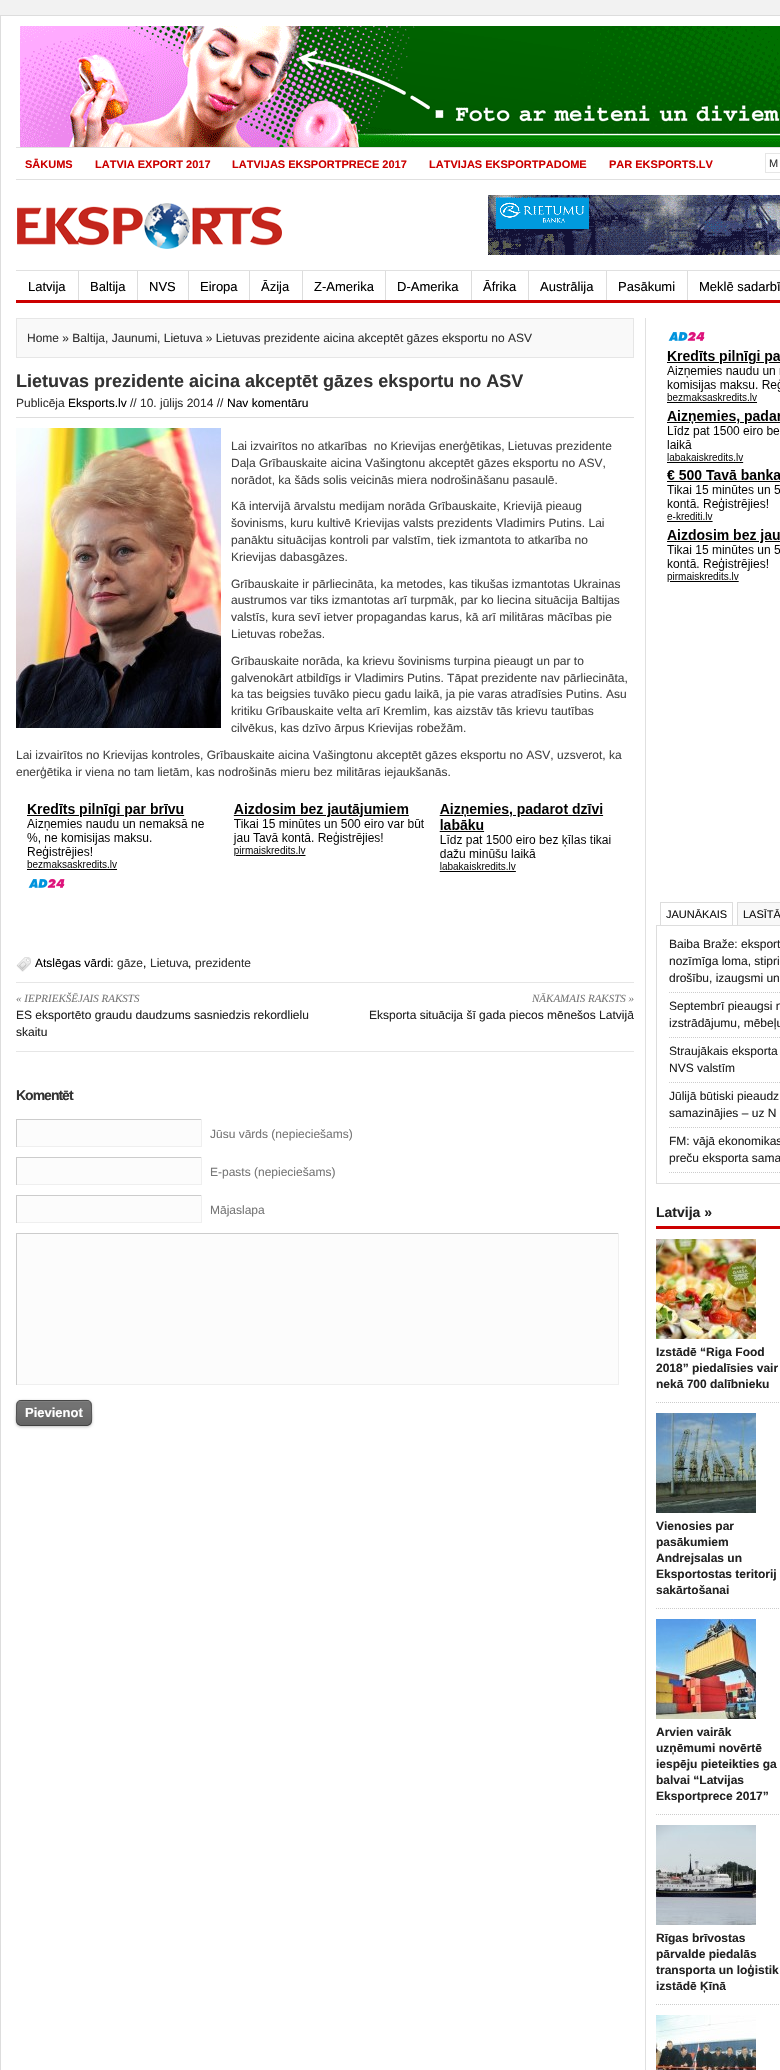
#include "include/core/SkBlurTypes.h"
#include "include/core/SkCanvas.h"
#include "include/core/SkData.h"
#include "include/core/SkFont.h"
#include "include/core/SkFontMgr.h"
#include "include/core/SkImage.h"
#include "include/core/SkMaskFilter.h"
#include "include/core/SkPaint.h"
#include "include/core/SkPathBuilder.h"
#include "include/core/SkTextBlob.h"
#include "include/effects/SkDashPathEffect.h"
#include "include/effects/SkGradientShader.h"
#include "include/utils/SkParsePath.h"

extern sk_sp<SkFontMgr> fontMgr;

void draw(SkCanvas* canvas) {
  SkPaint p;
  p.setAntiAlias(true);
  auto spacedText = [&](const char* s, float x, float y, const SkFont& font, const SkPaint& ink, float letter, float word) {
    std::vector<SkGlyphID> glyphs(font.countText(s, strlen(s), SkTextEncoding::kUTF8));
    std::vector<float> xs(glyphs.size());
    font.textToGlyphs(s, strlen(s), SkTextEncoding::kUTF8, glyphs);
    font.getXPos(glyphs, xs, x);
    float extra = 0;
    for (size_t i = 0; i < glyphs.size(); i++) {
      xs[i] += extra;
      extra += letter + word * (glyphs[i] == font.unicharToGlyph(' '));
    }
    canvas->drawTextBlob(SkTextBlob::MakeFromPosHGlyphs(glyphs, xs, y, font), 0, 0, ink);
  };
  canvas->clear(SkColorSetRGB(242, 242, 242));
  p.setColor(SK_ColorWHITE);
  canvas->drawRect(SkRect::MakeLTRB(0.5f, 15.5f, 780.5f, 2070.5f), p);
  p.setStyle(SkPaint::kStroke_Style);
  p.setStrokeWidth(1);
  p.setColor(SkColorSetRGB(221, 221, 221));
  canvas->drawRect(SkRect::MakeLTRB(0.5f, 15.5f, 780.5f, 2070.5f), p);
  canvas->drawImageRect(SkImages::DeferredFromEncodedData(SkData::MakeFromFileName("images/1.png")), SkRect::MakeLTRB(20, 26, 780, 147), SkSamplingOptions());
  p.setStyle(SkPaint::kFill_Style);
  p.setColor(SkColorSetRGB(224, 224, 224));
  canvas->drawRect(SkRect::MakeLTRB(16, 147, 780, 148), p);
  canvas->drawRect(SkRect::MakeLTRB(16, 179, 780, 180), p);
  p.setStyle(SkPaint::kStroke_Style);
  p.setColor(SkColorSetRGB(230, 230, 230));
  canvas->drawRect(SkRect::MakeLTRB(765.5f, 153.5f, 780.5f, 172.5f), p);
  canvas->drawImageRect(SkImages::DeferredFromEncodedData(SkData::MakeFromFileName("images/2.png")), SkRect::MakeLTRB(17, 203, 282, 249), SkSamplingOptions());
  canvas->drawImageRect(SkImages::DeferredFromEncodedData(SkData::MakeFromFileName("images/3.png")), SkRect::MakeLTRB(488, 195, 780, 255), SkSamplingOptions());
  p.setStyle(SkPaint::kFill_Style);
  p.setColor(SkColorSetRGB(224, 224, 224));
  canvas->drawRect(SkRect::MakeLTRB(16, 270, 780, 271), p);
  p.setColor(SkColorSetRGB(204, 0, 0));
  canvas->drawRect(SkRect::MakeLTRB(16, 300, 780, 303), p);
  p.setColor(SkColorSetRGB(221, 221, 221));
  canvas->drawRect(SkRect::MakeLTRB(78, 271, 79, 300), p);
  canvas->drawRect(SkRect::MakeLTRB(137, 271, 138, 300), p);
  canvas->drawRect(SkRect::MakeLTRB(188, 271, 189, 300), p);
  canvas->drawRect(SkRect::MakeLTRB(249, 271, 250, 300), p);
  canvas->drawRect(SkRect::MakeLTRB(302, 271, 303, 300), p);
  canvas->drawRect(SkRect::MakeLTRB(385, 271, 386, 300), p);
  canvas->drawRect(SkRect::MakeLTRB(471, 271, 472, 300), p);
  canvas->drawRect(SkRect::MakeLTRB(528, 271, 529, 300), p);
  canvas->drawRect(SkRect::MakeLTRB(606, 271, 607, 300), p);
  canvas->drawRect(SkRect::MakeLTRB(687, 271, 688, 300), p);
  p.setColor(SkColorSetRGB(249, 249, 249));
  canvas->drawRect(SkRect::MakeLTRB(16.5f, 318.5f, 633.5f, 357.5f), p);
  p.setStyle(SkPaint::kStroke_Style);
  p.setColor(SkColorSetRGB(230, 230, 230));
  canvas->drawRect(SkRect::MakeLTRB(16.5f, 318.5f, 633.5f, 357.5f), p);
  p.setStyle(SkPaint::kFill_Style);
  p.setColor(SkColorSetRGB(221, 221, 221));
  canvas->drawRect(SkRect::MakeLTRB(16, 417, 634, 418), p);
  canvas->drawImageRect(SkImages::DeferredFromEncodedData(SkData::MakeFromFileName("images/4.png")), SkRect::MakeLTRB(16, 428, 221, 728), SkSamplingOptions());
  canvas->drawImageRect(SkImages::DeferredFromEncodedData(SkData::MakeFromFileName("images/5.png")), SkRect::MakeLTRB(27, 803, 611, 888), SkSamplingOptions());
  canvas->drawImageRect(SkImages::DeferredFromEncodedData(SkData::MakeFromFileName("images/6.png")), SkRect::MakeLTRB(16, 957, 31, 972), SkSamplingOptions());
  p.setColor(SkColorSetRGB(230, 230, 230));
  canvas->drawRect(SkRect::MakeLTRB(16, 982, 634, 983), p);
  canvas->drawRect(SkRect::MakeLTRB(16, 1051, 634, 1052), p);
  p.setColor(SkColorSetRGB(252, 252, 252));
  canvas->drawRect(SkRect::MakeLTRB(17, 1120, 201, 1146), p);
  p.setColor(SkColorSetRGB(204, 204, 204));
  canvas->drawRect(SkRect::MakeLTRB(16, 1119, 202, 1120), p);
  p.setColor(SkColorSetRGB(239, 239, 239));
  canvas->drawRect(SkRect::MakeLTRB(201, 1119, 202, 1147), p);
  canvas->drawRect(SkRect::MakeLTRB(16, 1146, 202, 1147), p);
  p.setColor(SkColorSetRGB(204, 204, 204));
  canvas->drawRect(SkRect::MakeLTRB(16, 1119, 17, 1147), p);
  p.setColor(SkColorSetRGB(252, 252, 252));
  canvas->drawRect(SkRect::MakeLTRB(17, 1158, 201, 1184), p);
  p.setColor(SkColorSetRGB(204, 204, 204));
  canvas->drawRect(SkRect::MakeLTRB(16, 1157, 202, 1158), p);
  p.setColor(SkColorSetRGB(239, 239, 239));
  canvas->drawRect(SkRect::MakeLTRB(201, 1157, 202, 1185), p);
  canvas->drawRect(SkRect::MakeLTRB(16, 1184, 202, 1185), p);
  p.setColor(SkColorSetRGB(204, 204, 204));
  canvas->drawRect(SkRect::MakeLTRB(16, 1157, 17, 1185), p);
  p.setColor(SkColorSetRGB(252, 252, 252));
  canvas->drawRect(SkRect::MakeLTRB(17, 1196, 201, 1222), p);
  p.setColor(SkColorSetRGB(204, 204, 204));
  canvas->drawRect(SkRect::MakeLTRB(16, 1195, 202, 1196), p);
  p.setColor(SkColorSetRGB(239, 239, 239));
  canvas->drawRect(SkRect::MakeLTRB(201, 1195, 202, 1223), p);
  canvas->drawRect(SkRect::MakeLTRB(16, 1222, 202, 1223), p);
  p.setColor(SkColorSetRGB(204, 204, 204));
  canvas->drawRect(SkRect::MakeLTRB(16, 1195, 17, 1223), p);
  p.setColor(SkColorSetRGB(252, 252, 252));
  canvas->drawRect(SkRect::MakeLTRB(17, 1234, 618, 1384), p);
  p.setColor(SkColorSetRGB(204, 204, 204));
  canvas->drawRect(SkRect::MakeLTRB(16, 1233, 619, 1234), p);
  p.setColor(SkColorSetRGB(239, 239, 239));
  canvas->drawRect(SkRect::MakeLTRB(618, 1233, 619, 1385), p);
  canvas->drawRect(SkRect::MakeLTRB(16, 1384, 619, 1385), p);
  p.setColor(SkColorSetRGB(204, 204, 204));
  canvas->drawRect(SkRect::MakeLTRB(16, 1233, 17, 1385), p);
  p.setColor(SkColorSetARGB(64, 0, 0, 0));
  p.setMaskFilter(SkMaskFilter::MakeBlur(kNormal_SkBlurStyle, 1.5f));
  canvas->drawRoundRect(SkRect::MakeLTRB(16, 1401, 92, 1427), 5, 5, p);
  p.setMaskFilter(nullptr);
  p.setColor(SkColorSetRGB(102, 102, 102));
  canvas->drawRoundRect(SkRect::MakeLTRB(16, 1400, 92, 1426), 5, 5, p);
  canvas->drawImageRect(SkImages::DeferredFromEncodedData(SkData::MakeFromFileName("images/7.png")), SkRect::MakeLTRB(16, 1400, 92, 1426), SkSamplingOptions());
  p.setStyle(SkPaint::kStroke_Style);
  p.setColor(SkColorSetARGB(89, 0, 0, 0));
  canvas->drawPath(SkPathBuilder().moveTo(90, 1424).lineTo(87.5f, 1425.5f).lineTo(20.5f, 1425.5f).lineTo(18, 1424).detach(), p);
  p.setColor(SkColorSetARGB(64, 0, 0, 0));
  canvas->drawPath(SkPathBuilder().moveTo(18, 1424).cubicTo(15, 1421.5f, 16.5f, 1416, 16.5f, 1413).cubicTo(16.5f, 1398.5f, 16.5f, 1400.5f, 32, 1400.5f).lineTo(76, 1400.5f).cubicTo(89.5f, 1400.5f, 91.5f, 1398, 91.5f, 1410.5f).cubicTo(91.5f, 1413.5f, 93, 1421.5f, 90, 1424).detach(), p);
  p.setStyle(SkPaint::kFill_Style);
  p.setColor(SkColorSetRGB(224, 224, 224));
  canvas->drawRect(SkRect::MakeLTRB(645, 318, 646, 2070), p);
  canvas->drawImageRect(SkImages::DeferredFromEncodedData(SkData::MakeFromFileName("images/8.png")), SkRect::MakeLTRB(667, 331, 780, 582), SkSamplingOptions());
  p.setColor(SkColorSetRGB(221, 221, 221));
  canvas->drawRect(SkRect::MakeLTRB(656, 925, 780, 926), p);
  canvas->drawRect(SkRect::MakeLTRB(660, 902, 733, 903), p);
  canvas->drawRect(SkRect::MakeLTRB(732, 902, 733, 925), p);
  canvas->drawRect(SkRect::MakeLTRB(660, 902, 661, 925), p);
  p.setColor(SkColorSetRGB(248, 248, 248));
  canvas->drawRect(SkRect::MakeLTRB(738, 903, 780, 925), p);
  p.setColor(SkColorSetRGB(221, 221, 221));
  canvas->drawRect(SkRect::MakeLTRB(737, 902, 780, 903), p);
  canvas->drawRect(SkRect::MakeLTRB(737, 902, 738, 925), p);
  canvas->drawRect(SkRect::MakeLTRB(656, 1183, 780, 1184), p);
  canvas->drawRect(SkRect::MakeLTRB(656, 926, 657, 1184), p);
  p.setStyle(SkPaint::kStroke_Style);
  p.setColor(SkColorSetRGB(204, 204, 204));
  p.setPathEffect(SkDashPathEffect::Make({{1, 1}}, 0));
  canvas->drawPath(SkPathBuilder().moveTo(669, 992.5f).lineTo(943, 992.5f).detach(), p);
  p.setPathEffect(nullptr);
  p.setPathEffect(SkDashPathEffect::Make({{1, 1}}, 0));
  canvas->drawPath(SkPathBuilder().moveTo(669, 1037.5f).lineTo(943, 1037.5f).detach(), p);
  p.setPathEffect(nullptr);
  p.setPathEffect(SkDashPathEffect::Make({{1, 1}}, 0));
  canvas->drawPath(SkPathBuilder().moveTo(669, 1082.5f).lineTo(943, 1082.5f).detach(), p);
  p.setPathEffect(nullptr);
  p.setPathEffect(SkDashPathEffect::Make({{1, 1}}, 0));
  canvas->drawPath(SkPathBuilder().moveTo(669, 1127.5f).lineTo(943, 1127.5f).detach(), p);
  p.setPathEffect(nullptr);
  p.setPathEffect(SkDashPathEffect::Make({{1, 1}}, 0));
  canvas->drawPath(SkPathBuilder().moveTo(669, 1172.5f).lineTo(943, 1172.5f).detach(), p);
  p.setPathEffect(nullptr);
  p.setStyle(SkPaint::kFill_Style);
  p.setColor(SkColorSetRGB(204, 0, 0));
  canvas->drawRect(SkRect::MakeLTRB(656, 1226, 780, 1229), p);
  canvas->drawImageRect(SkImages::DeferredFromEncodedData(SkData::MakeFromFileName("images/9.png")), SkRect::MakeLTRB(656, 1239, 756, 1339), SkSamplingOptions());
  p.setStyle(SkPaint::kStroke_Style);
  p.setColor(SkColorSetRGB(204, 204, 204));
  p.setPathEffect(SkDashPathEffect::Make({{1, 1}}, 0));
  canvas->drawPath(SkPathBuilder().moveTo(656, 1402.5f).lineTo(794, 1402.5f).detach(), p);
  p.setPathEffect(nullptr);
  canvas->drawImageRect(SkImages::DeferredFromEncodedData(SkData::MakeFromFileName("images/10.png")), SkRect::MakeLTRB(656, 1413, 756, 1513), SkSamplingOptions());
  p.setPathEffect(SkDashPathEffect::Make({{1, 1}}, 0));
  canvas->drawPath(SkPathBuilder().moveTo(656, 1608.5f).lineTo(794, 1608.5f).detach(), p);
  p.setPathEffect(nullptr);
  canvas->drawImageRect(SkImages::DeferredFromEncodedData(SkData::MakeFromFileName("images/11.png")), SkRect::MakeLTRB(656, 1619, 756, 1719), SkSamplingOptions());
  p.setPathEffect(SkDashPathEffect::Make({{1, 1}}, 0));
  canvas->drawPath(SkPathBuilder().moveTo(656, 1814.5f).lineTo(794, 1814.5f).detach(), p);
  p.setPathEffect(nullptr);
  canvas->drawImageRect(SkImages::DeferredFromEncodedData(SkData::MakeFromFileName("images/12.png")), SkRect::MakeLTRB(656, 1825, 756, 1925), SkSamplingOptions());
  p.setPathEffect(SkDashPathEffect::Make({{1, 1}}, 0));
  canvas->drawPath(SkPathBuilder().moveTo(656, 2004.5f).lineTo(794, 2004.5f).detach(), p);
  p.setPathEffect(nullptr);
  canvas->drawImageRect(SkImages::DeferredFromEncodedData(SkData::MakeFromFileName("images/13.png")), SkRect::MakeLTRB(656, 2015, 756, 2070), SkSamplingOptions());
  SkFont font1(fontMgr->matchFamilyStyle("Liberation Sans", SkFontStyle::Bold()), 11);
  font1.setSubpixel(true);
  p.setStyle(SkPaint::kFill_Style);
  p.setColor(SkColorSetRGB(204, 0, 0));
  canvas->drawString("SĀKUMS", 25, 168, font1, p);
  canvas->drawString("LATVIA EXPORT 2017", 95, 168, font1, p);
  canvas->drawString("LATVIJAS EKSPORTPRECE 2017", 232, 168, font1, p);
  canvas->drawString("LATVIJAS EKSPORTPADOME", 429, 168, font1, p);
  canvas->drawString("PAR EKSPORTS.LV", 609, 168, font1, p);
  SkFont font2(fontMgr->matchFamilyStyle("Liberation Sans", SkFontStyle::Normal()), 11);
  font2.setSubpixel(true);
  p.setColor(SkColorSetRGB(51, 51, 51));
  canvas->drawString("M", 769, 167, font2, p);
  SkFont font3(fontMgr->matchFamilyStyle("Liberation Sans", SkFontStyle::Normal()), 13);
  font3.setSubpixel(true);
  p.setColor(SK_ColorBLACK);
  canvas->drawString("Latvija", 28, 291, font3, p);
  canvas->drawString("Baltija", 90, 291, font3, p);
  canvas->drawString("NVS", 149, 291, font3, p);
  canvas->drawString("Eiropa", 200, 291, font3, p);
  canvas->drawString("Āzija", 261, 291, font3, p);
  canvas->drawString("Z-Amerika", 314, 291, font3, p);
  canvas->drawString("D-Amerika", 397, 291, font3, p);
  canvas->drawString("Āfrika", 483, 291, font3, p);
  canvas->drawString("Austrālija", 540, 291, font3, p);
  canvas->drawString("Pasākumi", 618, 291, font3, p);
  canvas->drawString("Meklē sadarbī", 699, 291, font3, p);
  SkFont font4(fontMgr->matchFamilyStyle("Liberation Sans", SkFontStyle::Normal()), 12);
  font4.setSubpixel(true);
  p.setColor(SkColorSetRGB(51, 51, 51));
  canvas->drawString("Home » Baltija, Jaunumi, Lietuva » Lietuvas prezidente aicina akceptēt gāzes eksportu no ASV", 27, 342, font4, p);
  SkFont font5(fontMgr->matchFamilyStyle("Liberation Sans", SkFontStyle::Bold()), 18);
  font5.setSubpixel(true);
  canvas->drawString("Lietuvas prezidente aicina akceptēt gāzes eksportu no ASV", 16, 387, font5, p);
  canvas->drawString("Publicēja", 16, 407, font4, p);
  p.setColor(SK_ColorBLACK);
  canvas->drawString("Eksports.lv", 68, 407, font4, p);
  p.setColor(SkColorSetRGB(51, 51, 51));
  canvas->drawString("// 10. jūlijs 2014 //", 130, 407, font4, p);
  p.setColor(SK_ColorBLACK);
  canvas->drawString("Nav komentāru", 227, 407, font4, p);
  p.setColor(SkColorSetRGB(68, 68, 68));
  canvas->drawString("Lai izvairītos no atkarības  no Krievijas enerģētikas, Lietuvas prezidente", 231, 450, font4, p);
  canvas->drawString("Daļa Grībauskaite aicina Vašingtonu akceptēt gāzes eksportu no ASV,", 231, 467, font4, p);
  canvas->drawString("norādot, ka šāds solis veicinās miera nodrošināšanu pasaulē.", 231, 484, font4, p);
  canvas->drawString("Kā intervijā ārvalstu medijam norāda Grībauskaite, Krievijā pieaug", 231, 510, font4, p);
  canvas->drawString("šovinisms, kuru kultivē Krievijas valsts prezidents Vladimirs Putins. Lai", 231, 527, font4, p);
  canvas->drawString("panāktu situācijas kontroli par valstīm, tiek izmantota to atkarība no", 231, 544, font4, p);
  canvas->drawString("Krievijas dabasgāzes.", 231, 561, font4, p);
  canvas->drawString("Grībauskaite ir pārliecināta, ka metodes, kas tikušas izmantotas Ukrainas", 231, 588, font4, p);
  canvas->drawString("austrumos var tiks izmantotas arī turpmāk, par ko liecina situācija Baltijas", 231, 604, font4, p);
  canvas->drawString("valstīs, kura sevī ietver propagandas karus, kā arī militāras mācības pie", 231, 621, font4, p);
  canvas->drawString("Lietuvas robežas.", 231, 638, font4, p);
  canvas->drawString("Grībauskaite norāda, ka krievu šovinisms turpina pieaugt un par to", 231, 665, font4, p);
  canvas->drawString("galvenokārt atbildīgs ir Vladimirs Putins. Tāpat prezidente nav pārliecināta,", 231, 682, font4, p);
  canvas->drawString("ka tas beigsies tuvāko piecu gadu laikā, ja pie varas atradīsies Putins. Asu", 231, 698, font4, p);
  canvas->drawString("kritiku Grībauskaite velta arī Kremlim, kas aizstāv tās krievu tautības", 231, 715, font4, p);
  canvas->drawString("cilvēkus, kas dzīvo ārpus Krievijas robežām.", 231, 732, font4, p);
  canvas->drawString("Lai izvairītos no Krievijas kontroles, Grībauskaite aicina Vašingtonu akceptēt gāzes eksportu no ASV, uzsverot, ka", 16, 759, font4, p);
  canvas->drawString("enerģētika ir viena no tam lietām, kas nodrošinās mieru bez militāras iejaukšanās.", 16, 776, font4, p);
  p.setColor(SK_ColorBLACK);
  canvas->drawString("Atslēgas vārdi:", 35, 967, font4, p);
  p.setColor(SkColorSetRGB(51, 51, 51));
  canvas->drawString("gāze", 117, 967, font4, p);
  p.setColor(SK_ColorBLACK);
  canvas->drawString(",", 143, 967, font4, p);
  p.setColor(SkColorSetRGB(51, 51, 51));
  canvas->drawString("Lietuva", 150, 967, font4, p);
  p.setColor(SK_ColorBLACK);
  canvas->drawString(",", 188, 967, font4, p);
  p.setColor(SkColorSetRGB(51, 51, 51));
  canvas->drawString("prezidente", 195, 967, font4, p);
  SkFont font6(fontMgr->matchFamilyStyle("Liberation Serif", SkFontStyle::Italic()), 11);
  font6.setSubpixel(true);
  p.setColor(SkColorSetRGB(119, 119, 119));
  canvas->drawString("« IEPRIEKŠĒJAIS RAKSTS", 16, 1002, font6, p);
  p.setColor(SkColorSetRGB(34, 34, 34));
  canvas->drawString("ES eksportēto graudu daudzums sasniedzis rekordlielu", 16, 1019, font4, p);
  canvas->drawString("skaitu", 16, 1036, font4, p);
  p.setColor(SkColorSetRGB(119, 119, 119));
  canvas->drawString("NĀKAMAIS RAKSTS »", 532, 1002, font6, p);
  p.setColor(SkColorSetRGB(34, 34, 34));
  canvas->drawString("Eksporta situācija šī gada piecos mēnešos Latvijā", 369, 1019, font4, p);
  SkFont font7(fontMgr->matchFamilyStyle("Liberation Sans", SkFontStyle::Bold()), 14);
  font7.setSubpixel(true);
  p.setColor(SkColorSetRGB(51, 51, 51));
  spacedText("Komentēt", 16, 1100, font7, p, -1, 0);
  p.setColor(SkColorSetRGB(119, 119, 119));
  canvas->drawString("Jūsu vārds (nepieciešams)", 210, 1138, font4, p);
  canvas->drawString("E-pasts (nepieciešams)", 210, 1176, font4, p);
  canvas->drawString("Mājaslapa", 210, 1214, font4, p);
  SkFont font8(fontMgr->matchFamilyStyle("Liberation Sans", SkFontStyle::Bold()), 13);
  font8.setSubpixel(true);
  p.setColor(SK_ColorWHITE);
  canvas->drawString("Pievienot", 25, 1417, font8, p);
  p.setColor(SkColorSetRGB(17, 17, 17));
  canvas->drawString("JAUNĀKAIS", 666, 918, font2, p);
  canvas->drawString("LASĪTĀ", 743, 918, font2, p);
  p.setColor(SkColorSetRGB(34, 34, 34));
  canvas->drawString("Baiba Braže: eksport", 669, 948, font4, p);
  canvas->drawString("nozīmīga loma, stipri", 669, 965, font4, p);
  canvas->drawString("drošību, izaugsmi un", 669, 982, font4, p);
  canvas->drawString("Septembrī pieaugsi n", 669, 1010, font4, p);
  canvas->drawString("izstrādājumu, mēbeļu", 669, 1027, font4, p);
  canvas->drawString("Straujākais eksporta", 669, 1055, font4, p);
  canvas->drawString("NVS valstīm", 669, 1072, font4, p);
  canvas->drawString("Jūlijā būtiski pieaudz", 669, 1100, font4, p);
  canvas->drawString("samazinājies – uz N", 669, 1117, font4, p);
  canvas->drawString("FM: vājā ekonomikas", 669, 1145, font4, p);
  canvas->drawString("preču eksporta sama", 669, 1162, font4, p);
  canvas->drawString("Latvija »", 656, 1217, font7, p);
  SkFont font9(fontMgr->matchFamilyStyle("Liberation Sans", SkFontStyle::Bold()), 12);
  font9.setSubpixel(true);
  canvas->drawString("Izstādē “Riga Food", 656, 1356, font9, p);
  canvas->drawString("2018” piedalīsies vair", 656, 1372, font9, p);
  canvas->drawString("nekā 700 dalībnieku", 656, 1388, font9, p);
  canvas->drawString("Vienosies par", 656, 1530, font9, p);
  canvas->drawString("pasākumiem", 656, 1546, font9, p);
  canvas->drawString("Andrejsalas un", 656, 1562, font9, p);
  canvas->drawString("Eksportostas teritorij", 656, 1578, font9, p);
  canvas->drawString("sakārtošanai", 656, 1594, font9, p);
  canvas->drawString("Arvien vairāk", 656, 1736, font9, p);
  canvas->drawString("uzņēmumi novērtē", 656, 1752, font9, p);
  canvas->drawString("iespēju pieteikties ga", 656, 1768, font9, p);
  canvas->drawString("balvai “Latvijas", 656, 1784, font9, p);
  canvas->drawString("Eksportprece 2017”", 656, 1800, font9, p);
  canvas->drawString("Rīgas brīvostas", 656, 1942, font9, p);
  canvas->drawString("pārvalde piedalās", 656, 1958, font9, p);
  canvas->drawString("transporta un loģistik", 656, 1974, font9, p);
  canvas->drawString("izstādē Ķīnā", 656, 1990, font9, p);
}
